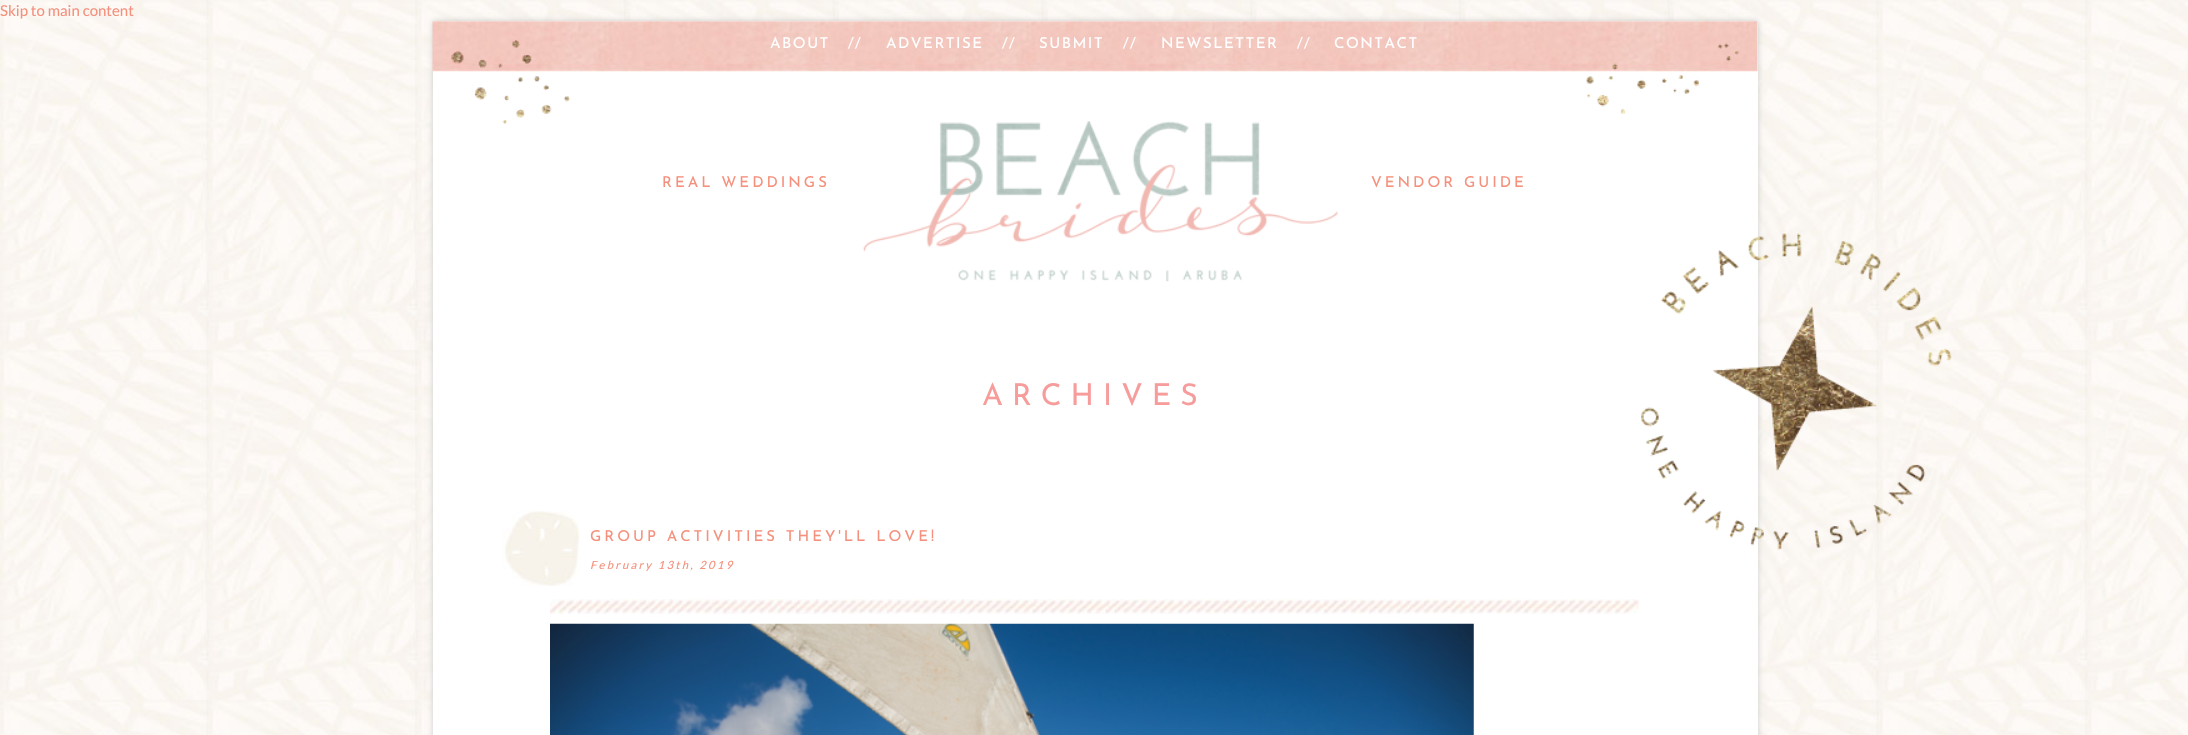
#include "include/core/SkBlurTypes.h"
#include "include/core/SkCanvas.h"
#include "include/core/SkData.h"
#include "include/core/SkFont.h"
#include "include/core/SkFontMgr.h"
#include "include/core/SkImage.h"
#include "include/core/SkMaskFilter.h"
#include "include/core/SkPaint.h"
#include "include/core/SkPathBuilder.h"
#include "include/core/SkTextBlob.h"
#include "include/effects/SkDashPathEffect.h"
#include "include/effects/SkGradientShader.h"
#include "include/utils/SkParsePath.h"

extern sk_sp<SkFontMgr> fontMgr;

void draw(SkCanvas* canvas) {
  SkPaint p;
  p.setAntiAlias(true);
  auto spacedText = [&](const char* s, float x, float y, const SkFont& font, const SkPaint& ink, float letter, float word) {
    std::vector<SkGlyphID> glyphs(font.countText(s, strlen(s), SkTextEncoding::kUTF8));
    std::vector<float> xs(glyphs.size());
    font.textToGlyphs(s, strlen(s), SkTextEncoding::kUTF8, glyphs);
    font.getXPos(glyphs, xs, x);
    float extra = 0;
    for (size_t i = 0; i < glyphs.size(); i++) {
      xs[i] += extra;
      extra += letter + word * (glyphs[i] == font.unicharToGlyph(' '));
    }
    canvas->drawTextBlob(SkTextBlob::MakeFromPosHGlyphs(glyphs, xs, y, font), 0, 0, ink);
  };
  canvas->clear(SK_ColorWHITE);
  canvas->drawImageRect(SkImages::DeferredFromEncodedData(SkData::MakeFromFileName("images/1.png")), SkRect::MakeLTRB(0, 0, 2188, 735), SkSamplingOptions());
  p.setColor(SkColorSetRGB(204, 204, 204));
  p.setMaskFilter(SkMaskFilter::MakeBlur(kNormal_SkBlurStyle, 3));
  canvas->drawRect(SkRect::MakeLTRB(433, 21, 1758, 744), p);
  p.setMaskFilter(nullptr);
  p.setColor(SK_ColorWHITE);
  canvas->drawRect(SkRect::MakeLTRB(433, 21, 1758, 735), p);
  canvas->drawImageRect(SkImages::DeferredFromEncodedData(SkData::MakeFromFileName("images/2.png")), SkRect::MakeLTRB(432, 21, 1758, 72), SkSamplingOptions());
  canvas->drawImageRect(SkImages::DeferredFromEncodedData(SkData::MakeFromFileName("images/3.png")), SkRect::MakeLTRB(451, 40, 1739, 124), SkSamplingOptions());
  canvas->drawImageRect(SkImages::DeferredFromEncodedData(SkData::MakeFromFileName("images/4.png")), SkRect::MakeLTRB(863, 121, 1338, 282), SkSamplingOptions());
  canvas->drawImageRect(SkImages::DeferredFromEncodedData(SkData::MakeFromFileName("images/5.png")), SkRect::MakeLTRB(1641, 233, 1952, 550), SkSamplingOptions());
  canvas->drawImageRect(SkImages::DeferredFromEncodedData(SkData::MakeFromFileName("images/6.png")), SkRect::MakeLTRB(503, 511, 580, 586), SkSamplingOptions());
  canvas->drawImageRect(SkImages::DeferredFromEncodedData(SkData::MakeFromFileName("images/7.png")), SkRect::MakeLTRB(550, 599, 1639, 614), SkSamplingOptions());
  canvas->drawImageRect(SkImages::DeferredFromEncodedData(SkData::MakeFromFileName("images/8.png")), SkRect::MakeLTRB(550, 623, 1474, 735), SkSamplingOptions());
  SkFont font1(fontMgr->matchFamilyStyle("Lato", SkFontStyle::Normal()), 15);
  font1.setSubpixel(true);
  p.setColor(SkColorSetRGB(245, 144, 124));
  canvas->drawString("Skip to main content", 0, 16, font1, p);
  SkFont font2(fontMgr->matchFamilyStyle("Josefin Sans", SkFontStyle(100, SkFontStyle::kNormal_Width, SkFontStyle::kUpright_Slant)), 15);
  font2.setSubpixel(true);
  p.setColor(SK_ColorWHITE);
  spacedText("ABOUT", 770, 48, font2, p, 1.5f, 0);
  spacedText("//", 848, 48, font1, p, 1.5f, 0);
  spacedText("ADVERTISE", 886, 48, font2, p, 1.5f, 0);
  spacedText("//", 1002, 48, font1, p, 1.5f, 0);
  spacedText("SUBMIT", 1039, 48, font2, p, 1.5f, 0);
  spacedText("//", 1123, 48, font1, p, 1.5f, 0);
  spacedText("NEWSLETTER", 1161, 48, font2, p, 1.5f, 0);
  spacedText("//", 1297, 48, font1, p, 1.5f, 0);
  spacedText("CONTACT", 1334, 48, font2, p, 1.5f, 0);
  p.setColor(SkColorSetRGB(245, 144, 124));
  spacedText("REAL WEDDINGS", 662, 187, font2, p, 3, 0);
  spacedText("VENDOR GUIDE", 1371, 187, font2, p, 3, 0);
  SkFont font3(fontMgr->matchFamilyStyle("Josefin Sans", SkFontStyle(100, SkFontStyle::kNormal_Width, SkFontStyle::kUpright_Slant)), 30);
  font3.setSubpixel(true);
  p.setColor(SkColorSetRGB(246, 156, 155));
  spacedText("ARCHIVES", 982, 405, font3, p, 9, 0);
  p.setColor(SkColorSetRGB(245, 144, 124));
  spacedText("GROUP ACTIVITIES THEY'LL LOVE!", 590, 541, font2, p, 3, 0);
  SkFont font4(fontMgr->matchFamilyStyle("Lato", SkFontStyle::Italic()), 11.25f);
  font4.setSubpixel(true);
  spacedText("February 13th, 2019", 590, 569, font4, p, 2.25f, 0);
}
